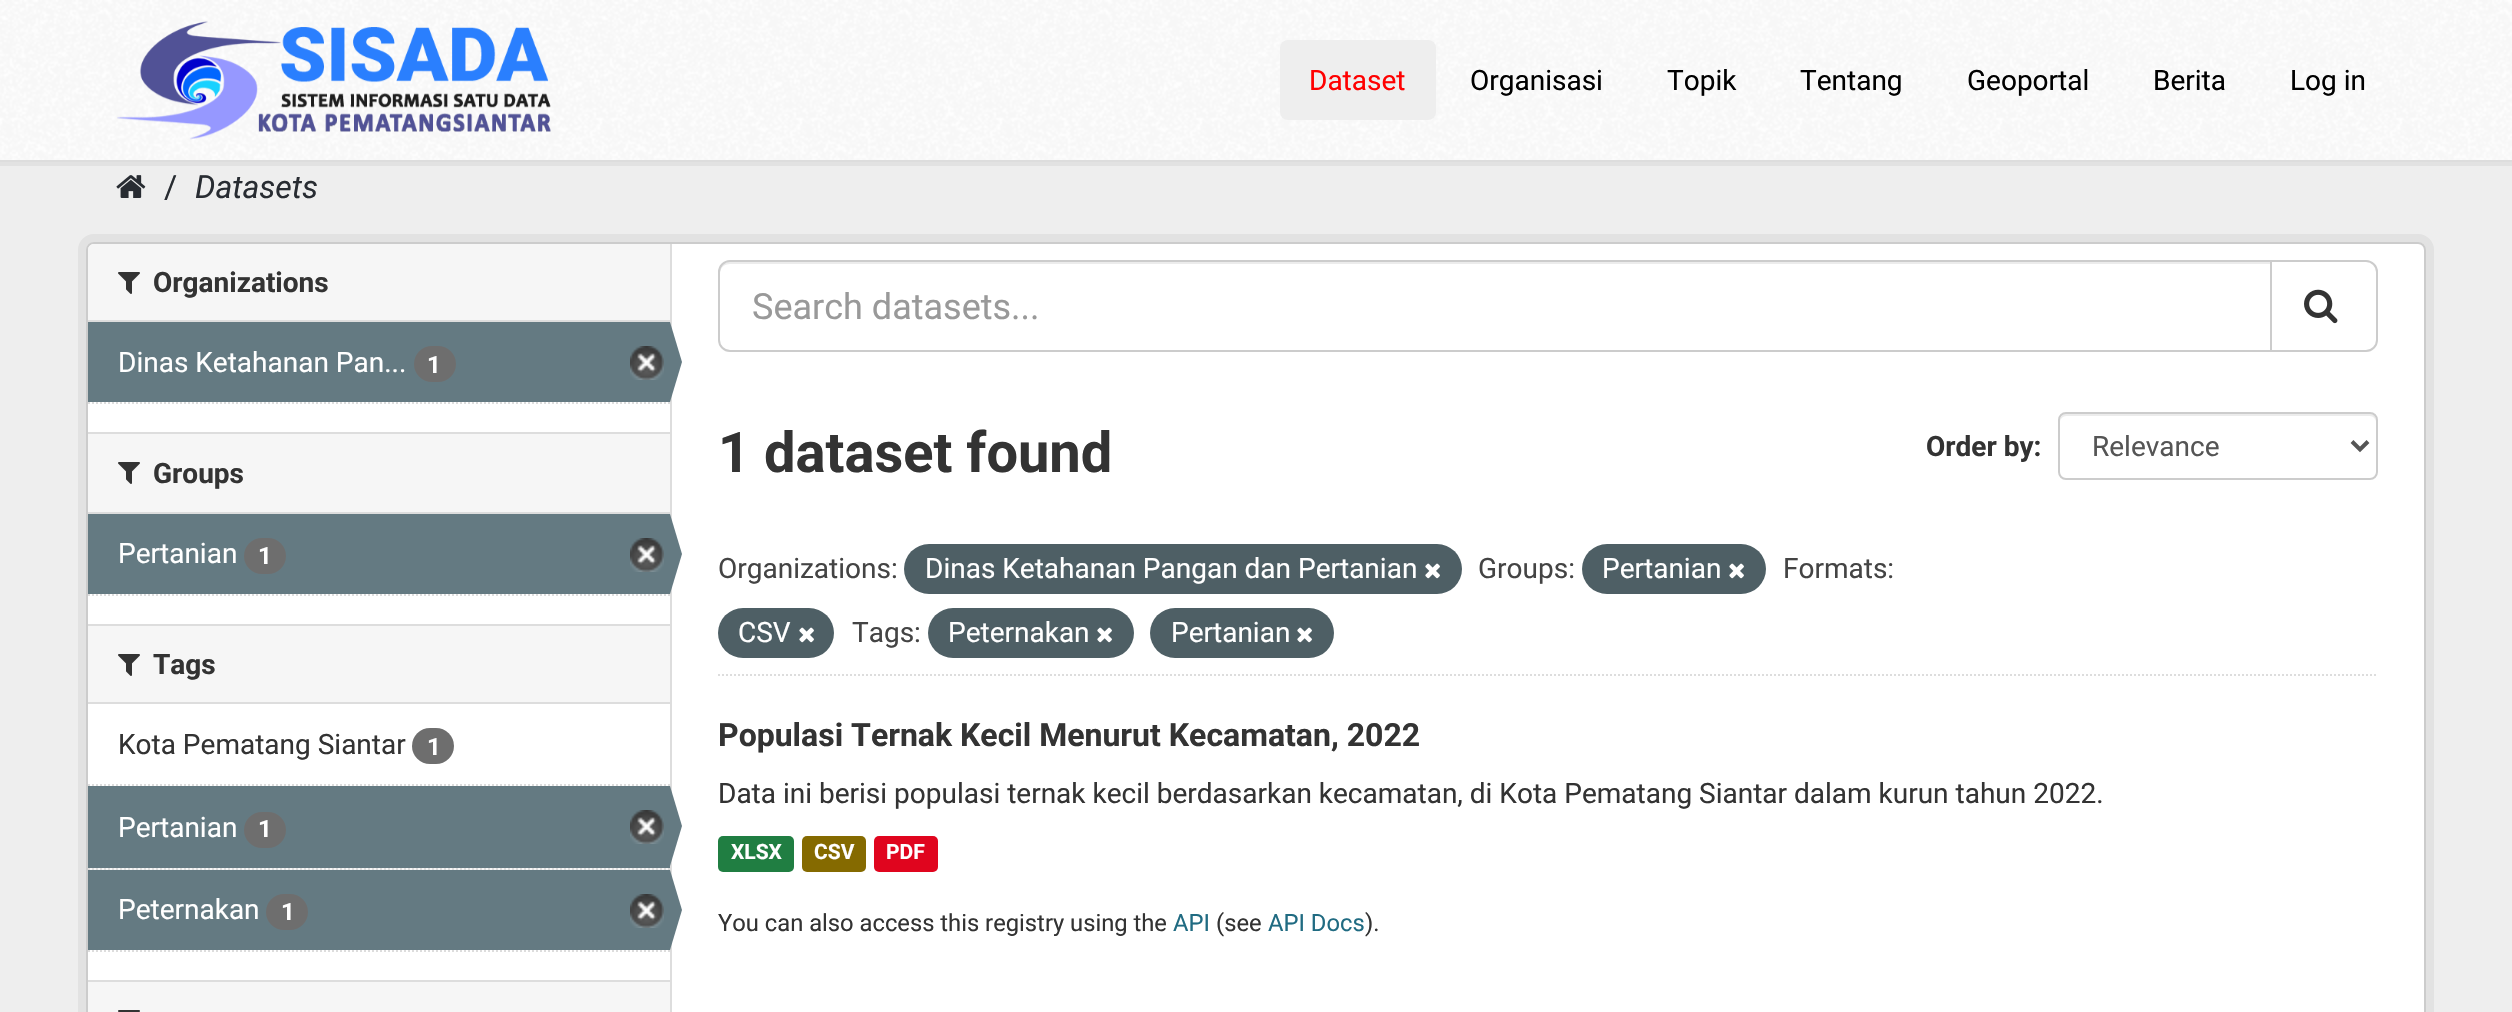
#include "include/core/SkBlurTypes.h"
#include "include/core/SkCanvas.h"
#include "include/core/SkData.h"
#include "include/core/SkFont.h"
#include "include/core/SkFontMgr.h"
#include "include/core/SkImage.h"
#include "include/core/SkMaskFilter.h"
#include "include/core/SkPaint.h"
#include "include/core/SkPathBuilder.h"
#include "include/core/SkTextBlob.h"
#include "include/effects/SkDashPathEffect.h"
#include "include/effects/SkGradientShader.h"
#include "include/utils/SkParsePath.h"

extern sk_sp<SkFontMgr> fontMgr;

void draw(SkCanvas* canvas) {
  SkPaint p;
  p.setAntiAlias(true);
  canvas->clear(SkColorSetRGB(238, 238, 238));
  p.setStyle(SkPaint::kStroke_Style);
  p.setStrokeWidth(4);
  p.setColor(SkColorSetRGB(226, 226, 226));
  canvas->drawRect(SkRect::MakeLTRB(-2, -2, 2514, 164), p);
  p.setStyle(SkPaint::kFill_Style);
  p.setColor(SK_ColorWHITE);
  canvas->drawRect(SkRect::MakeLTRB(0, 0, 2512, 160), p);
  canvas->drawImageRect(SkImages::DeferredFromEncodedData(SkData::MakeFromFileName("images/1.png")), SkRect::MakeLTRB(0, 0, 2512, 160), SkSamplingOptions());
  p.setColor(SkColorSetRGB(221, 221, 221));
  canvas->drawRect(SkRect::MakeLTRB(0, 160, 2512, 162), p);
  canvas->drawImageRect(SkImages::DeferredFromEncodedData(SkData::MakeFromFileName("images/2.png")), SkRect::MakeLTRB(117, 21, 551, 140), SkSamplingOptions());
  p.setColor(SkColorSetRGB(238, 238, 238));
  canvas->drawRoundRect(SkRect::MakeLTRB(1280, 40, 1436, 120), 8, 8, p);
  canvas->drawImageRect(SkImages::DeferredFromEncodedData(SkData::MakeFromFileName("images/3.png")), SkRect::MakeLTRB(116, 175, 146, 198), SkSamplingOptions());
  p.setStyle(SkPaint::kStroke_Style);
  p.setStrokeWidth(8);
  p.setColor(SkColorSetRGB(226, 226, 226));
  canvas->drawRoundRect(SkRect::MakeLTRB(82, 238, 2430, 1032), 12, 12, p);
  p.setStyle(SkPaint::kFill_Style);
  p.setColor(SK_ColorWHITE);
  canvas->drawRoundRect(SkRect::MakeLTRB(87, 243, 2425, 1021), 7, 7, p);
  p.setStyle(SkPaint::kStroke_Style);
  p.setStrokeWidth(2);
  p.setColor(SkColorSetRGB(204, 204, 204));
  canvas->drawRoundRect(SkRect::MakeLTRB(87, 243, 2425, 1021), 7, 7, p);
  p.setStyle(SkPaint::kFill_Style);
  p.setColor(SkColorSetRGB(246, 246, 246));
  canvas->drawPath(SkPathBuilder().moveTo(94, 244).lineTo(670, 244).lineTo(670, 322).lineTo(88, 322).lineTo(88, 250).cubicTo(88, 246.5f, 90.5f, 244, 94, 244).close().detach(), p);
  p.setColor(SkColorSetRGB(221, 221, 221));
  canvas->drawRect(SkRect::MakeLTRB(88, 320, 670, 322), p);
  canvas->drawImageRect(SkImages::DeferredFromEncodedData(SkData::MakeFromFileName("images/4.png")), SkRect::MakeLTRB(118, 272, 140, 294), SkSamplingOptions());
  p.setColor(SkColorSetRGB(100, 122, 130));
  canvas->drawRect(SkRect::MakeLTRB(88, 322, 670, 402), p);
  p.setColor(SkColorSetRGB(110, 110, 110));
  canvas->drawRoundRect(SkRect::MakeLTRB(414, 346, 456, 382), 18, 18, p);
  canvas->drawImageRect(SkImages::DeferredFromEncodedData(SkData::MakeFromFileName("images/5.png")), SkRect::MakeLTRB(630, 346, 664, 380), SkSamplingOptions());
  p.setColor(SkColorSetRGB(221, 221, 221));
  canvas->drawRect(SkRect::MakeLTRB(670, 244, 672, 1012), p);
  p.setColor(SkColorSetRGB(100, 122, 130));
  canvas->drawPath(SkPathBuilder().moveTo(670, 402).lineTo(670, 322).lineTo(682, 362).close().detach(), p);
  p.setStyle(SkPaint::kStroke_Style);
  p.setColor(SkColorSetRGB(221, 221, 221));
  p.setPathEffect(SkDashPathEffect::Make({{2, 2}}, 0));
  canvas->drawPath(SkPathBuilder().moveTo(88, 403).lineTo(670, 403).detach(), p);
  p.setPathEffect(nullptr);
  p.setStyle(SkPaint::kFill_Style);
  p.setColor(SkColorSetRGB(246, 246, 246));
  canvas->drawRect(SkRect::MakeLTRB(88, 434, 670, 512), p);
  p.setColor(SkColorSetRGB(221, 221, 221));
  canvas->drawRect(SkRect::MakeLTRB(88, 432, 670, 434), p);
  canvas->drawRect(SkRect::MakeLTRB(88, 512, 670, 514), p);
  canvas->drawImageRect(SkImages::DeferredFromEncodedData(SkData::MakeFromFileName("images/4.png")), SkRect::MakeLTRB(118, 462, 140, 484), SkSamplingOptions());
  p.setColor(SkColorSetRGB(100, 122, 130));
  canvas->drawRect(SkRect::MakeLTRB(88, 514, 670, 594), p);
  p.setColor(SkColorSetRGB(110, 110, 110));
  canvas->drawRoundRect(SkRect::MakeLTRB(244, 538, 286, 574), 18, 18, p);
  canvas->drawImageRect(SkImages::DeferredFromEncodedData(SkData::MakeFromFileName("images/5.png")), SkRect::MakeLTRB(630, 538, 664, 572), SkSamplingOptions());
  p.setColor(SkColorSetRGB(100, 122, 130));
  canvas->drawPath(SkPathBuilder().moveTo(670, 594).lineTo(670, 514).lineTo(682, 554).close().detach(), p);
  p.setStyle(SkPaint::kStroke_Style);
  p.setColor(SkColorSetRGB(221, 221, 221));
  p.setPathEffect(SkDashPathEffect::Make({{2, 2}}, 0));
  canvas->drawPath(SkPathBuilder().moveTo(88, 595).lineTo(670, 595).detach(), p);
  p.setPathEffect(nullptr);
  p.setStyle(SkPaint::kFill_Style);
  p.setColor(SkColorSetRGB(246, 246, 246));
  canvas->drawRect(SkRect::MakeLTRB(88, 626, 670, 702), p);
  p.setColor(SkColorSetRGB(221, 221, 221));
  canvas->drawRect(SkRect::MakeLTRB(88, 624, 670, 626), p);
  canvas->drawRect(SkRect::MakeLTRB(88, 702, 670, 704), p);
  canvas->drawImageRect(SkImages::DeferredFromEncodedData(SkData::MakeFromFileName("images/4.png")), SkRect::MakeLTRB(118, 654, 140, 676), SkSamplingOptions());
  p.setStyle(SkPaint::kStroke_Style);
  p.setPathEffect(SkDashPathEffect::Make({{2, 2}}, 0));
  canvas->drawPath(SkPathBuilder().moveTo(88, 785).lineTo(670, 785).detach(), p);
  p.setPathEffect(nullptr);
  p.setStyle(SkPaint::kFill_Style);
  p.setColor(SkColorSetRGB(110, 110, 110));
  canvas->drawRoundRect(SkRect::MakeLTRB(412, 728, 454, 764), 18, 18, p);
  p.setColor(SkColorSetRGB(246, 246, 246));
  canvas->drawRect(SkRect::MakeLTRB(90, 868, 668, 870), p);
  p.setStyle(SkPaint::kStroke_Style);
  p.setColor(SkColorSetRGB(221, 221, 221));
  p.setPathEffect(SkDashPathEffect::Make({{2, 2}}, 0));
  canvas->drawPath(SkPathBuilder().moveTo(88, 869).lineTo(670, 869).detach(), p);
  p.setPathEffect(nullptr);
  p.setStyle(SkPaint::kFill_Style);
  p.setColor(SkColorSetRGB(100, 122, 130));
  canvas->drawRect(SkRect::MakeLTRB(88, 786, 670, 868), p);
  p.setColor(SkColorSetRGB(110, 110, 110));
  canvas->drawRoundRect(SkRect::MakeLTRB(244, 812, 286, 848), 18, 18, p);
  canvas->drawImageRect(SkImages::DeferredFromEncodedData(SkData::MakeFromFileName("images/5.png")), SkRect::MakeLTRB(630, 810, 664, 844), SkSamplingOptions());
  p.setColor(SkColorSetRGB(100, 122, 130));
  canvas->drawPath(SkPathBuilder().moveTo(670, 866).lineTo(670, 786).lineTo(682, 826).close().detach(), p);
  canvas->drawRect(SkRect::MakeLTRB(88, 870, 670, 950), p);
  p.setColor(SkColorSetRGB(110, 110, 110));
  canvas->drawRoundRect(SkRect::MakeLTRB(266, 894, 308, 930), 18, 18, p);
  canvas->drawImageRect(SkImages::DeferredFromEncodedData(SkData::MakeFromFileName("images/5.png")), SkRect::MakeLTRB(630, 894, 664, 928), SkSamplingOptions());
  p.setColor(SkColorSetRGB(100, 122, 130));
  canvas->drawPath(SkPathBuilder().moveTo(670, 950).lineTo(670, 870).lineTo(682, 910).close().detach(), p);
  p.setStyle(SkPaint::kStroke_Style);
  p.setColor(SkColorSetRGB(221, 221, 221));
  p.setPathEffect(SkDashPathEffect::Make({{2, 2}}, 0));
  canvas->drawPath(SkPathBuilder().moveTo(88, 951).lineTo(670, 951).detach(), p);
  p.setPathEffect(nullptr);
  p.setStyle(SkPaint::kFill_Style);
  p.setColor(SkColorSetRGB(246, 246, 246));
  canvas->drawRect(SkRect::MakeLTRB(88, 982, 670, 1012), p);
  p.setColor(SkColorSetRGB(221, 221, 221));
  canvas->drawRect(SkRect::MakeLTRB(88, 980, 670, 982), p);
  canvas->drawImageRect(SkImages::DeferredFromEncodedData(SkData::MakeFromFileName("images/6.png")), SkRect::MakeLTRB(118, 1010, 140, 1012), SkSamplingOptions());
  p.setStyle(SkPaint::kStroke_Style);
  p.setPathEffect(SkDashPathEffect::Make({{2, 2}}, 0));
  canvas->drawPath(SkPathBuilder().moveTo(718, 675).lineTo(2378, 675).detach(), p);
  p.setPathEffect(nullptr);
  p.setStyle(SkPaint::kFill_Style);
  p.setColor(SkColorSetRGB(236, 236, 236));
  canvas->drawPath(SkPathBuilder().moveTo(730, 264).lineTo(2270, 264).lineTo(2270, 262).lineTo(730, 262).cubicTo(724, 262, 720, 266, 720, 272).lineTo(720, 274).cubicTo(720, 268, 724, 264, 730, 264).close().detach(), p);
  p.setStyle(SkPaint::kStroke_Style);
  p.setColor(SkColorSetRGB(204, 204, 204));
  canvas->drawPath(SkPathBuilder().moveTo(730, 261).lineTo(2271, 261).lineTo(2271, 351).lineTo(730, 351).cubicTo(724, 351, 719, 346, 719, 340).lineTo(719, 272).cubicTo(719, 266, 724, 261, 730, 261).close().detach(), p);
  p.setStyle(SkPaint::kFill_Style);
  p.setColor(SK_ColorWHITE);
  canvas->drawPath(SkPathBuilder().moveTo(2271, 261).lineTo(2366, 261).cubicTo(2372, 261, 2377, 266, 2377, 272).lineTo(2377, 340).cubicTo(2377, 346, 2372, 351, 2366, 351).lineTo(2271, 351).close().detach(), p);
  p.setStyle(SkPaint::kStroke_Style);
  p.setColor(SkColorSetRGB(204, 204, 204));
  canvas->drawPath(SkPathBuilder().moveTo(2271, 261).lineTo(2366, 261).cubicTo(2372, 261, 2377, 266, 2377, 272).lineTo(2377, 340).cubicTo(2377, 346, 2372, 351, 2366, 351).lineTo(2271, 351).close().detach(), p);
  canvas->drawImageRect(SkImages::DeferredFromEncodedData(SkData::MakeFromFileName("images/7.png")), SkRect::MakeLTRB(2304, 289, 2338, 324), SkSamplingOptions());
  p.setStyle(SkPaint::kFill_Style);
  p.setColor(SkColorSetRGB(236, 236, 236));
  canvas->drawPath(SkPathBuilder().moveTo(2066, 416).lineTo(2370, 416).cubicTo(2373, 416, 2376, 419, 2376, 422).cubicTo(2376, 418, 2375, 414, 2370, 414).lineTo(2065, 414).cubicTo(2061, 415, 2060, 419, 2060, 422).cubicTo(2060, 419, 2063, 416, 2066, 416).close().detach(), p);
  p.setStyle(SkPaint::kStroke_Style);
  p.setColor(SkColorSetRGB(204, 204, 204));
  canvas->drawRoundRect(SkRect::MakeLTRB(2059, 413, 2377, 479), 7, 7, p);
  p.setStrokeWidth(4);
  p.setColor(SkColorSetRGB(85, 85, 85));
  canvas->drawPath(SkPathBuilder().moveTo(2352, 441.5f).lineTo(2360, 449.5f).lineTo(2368, 441.5f).detach(), p);
  p.setStyle(SkPaint::kFill_Style);
  p.setColor(SkColorSetRGB(78, 95, 101));
  canvas->drawRoundRect(SkRect::MakeLTRB(904, 544, 1462, 594), 25, 25, p);
  canvas->drawImageRect(SkImages::DeferredFromEncodedData(SkData::MakeFromFileName("images/8.png")), SkRect::MakeLTRB(1425, 563, 1440, 579), SkSamplingOptions());
  canvas->drawRoundRect(SkRect::MakeLTRB(1582, 544, 1766, 594), 25, 25, p);
  canvas->drawImageRect(SkImages::DeferredFromEncodedData(SkData::MakeFromFileName("images/8.png")), SkRect::MakeLTRB(1729, 563, 1744, 579), SkSamplingOptions());
  canvas->drawRoundRect(SkRect::MakeLTRB(718, 608, 834, 658), 25, 25, p);
  canvas->drawImageRect(SkImages::DeferredFromEncodedData(SkData::MakeFromFileName("images/8.png")), SkRect::MakeLTRB(799, 627, 814, 643), SkSamplingOptions());
  canvas->drawRoundRect(SkRect::MakeLTRB(928, 608, 1134, 658), 25, 25, p);
  canvas->drawImageRect(SkImages::DeferredFromEncodedData(SkData::MakeFromFileName("images/8.png")), SkRect::MakeLTRB(1097, 627, 1112, 643), SkSamplingOptions());
  canvas->drawRoundRect(SkRect::MakeLTRB(1150, 608, 1334, 658), 25, 25, p);
  canvas->drawImageRect(SkImages::DeferredFromEncodedData(SkData::MakeFromFileName("images/8.png")), SkRect::MakeLTRB(1297, 627, 1312, 643), SkSamplingOptions());
  p.setColor(SkColorSetRGB(32, 126, 66));
  canvas->drawRoundRect(SkRect::MakeLTRB(718, 836, 794, 872), 5, 5, p);
  p.setColor(SkColorSetRGB(133, 106, 0));
  canvas->drawRoundRect(SkRect::MakeLTRB(802, 836, 866, 872), 5, 5, p);
  p.setColor(SkColorSetRGB(224, 5, 30));
  canvas->drawRoundRect(SkRect::MakeLTRB(874, 836, 938, 872), 5, 5, p);
  SkFont font1(fontMgr->matchFamilyStyle("Roboto", SkFontStyle::Normal()), 28);
  font1.setSubpixel(true);
  p.setColor(SkColorSetRGB(255, 0, 0));
  canvas->drawString("Dataset", 1309, 90, font1, p);
  p.setColor(SK_ColorBLACK);
  canvas->drawString("Organisasi", 1470, 90, font1, p);
  canvas->drawString("Topik", 1667, 90, font1, p);
  canvas->drawString("Tentang", 1800, 90, font1, p);
  canvas->drawString("Geoportal", 1967, 90, font1, p);
  canvas->drawString("Berita", 2153, 90, font1, p);
  canvas->drawString("Log in", 2290, 90, font1, p);
  SkFont font2(fontMgr->matchFamilyStyle("Roboto", SkFontStyle::Normal()), 32);
  font2.setSubpixel(true);
  p.setColor(SkColorSetRGB(40, 44, 50));
  canvas->drawString("/", 164, 198, font2, p);
  SkFont font3(fontMgr->matchFamilyStyle("Roboto", SkFontStyle::Italic()), 32);
  font3.setSubpixel(true);
  canvas->drawString("Datasets", 195, 198, font3, p);
  SkFont font4(fontMgr->matchFamilyStyle("Roboto", SkFontStyle::Bold()), 28);
  font4.setSubpixel(true);
  p.setColor(SkColorSetRGB(51, 51, 51));
  canvas->drawString("Organizations", 153, 292, font4, p);
  p.setColor(SK_ColorWHITE);
  canvas->drawString("Dinas Ketahanan Pan...", 118, 372, font1, p);
  SkFont font5(fontMgr->matchFamilyStyle("Roboto", SkFontStyle::Bold()), 24);
  font5.setSubpixel(true);
  canvas->drawString("1", 427, 373, font5, p);
  p.setColor(SkColorSetRGB(51, 51, 51));
  canvas->drawString("Groups", 153, 483, font4, p);
  p.setColor(SK_ColorWHITE);
  canvas->drawString("Pertanian", 118, 563, font1, p);
  canvas->drawString("1", 258, 564, font5, p);
  p.setColor(SkColorSetRGB(51, 51, 51));
  canvas->drawString("Tags", 153, 674, font4, p);
  canvas->drawString("Kota Pematang Siantar", 118, 754, font1, p);
  p.setColor(SK_ColorWHITE);
  canvas->drawString("1", 427, 755, font5, p);
  canvas->drawString("Pertanian", 118, 837, font1, p);
  canvas->drawString("1", 258, 837, font5, p);
  canvas->drawString("Peternakan", 118, 919, font1, p);
  canvas->drawString("1", 281, 920, font5, p);
  SkFont font6(fontMgr->matchFamilyStyle("Roboto", SkFontStyle::Normal()), 36);
  font6.setSubpixel(true);
  p.setColor(SkColorSetRGB(153, 153, 153));
  canvas->drawString("Search datasets...", 752, 319, font6, p);
  SkFont font7(fontMgr->matchFamilyStyle("Roboto", SkFontStyle::Bold()), 56);
  font7.setSubpixel(true);
  p.setColor(SkColorSetRGB(51, 51, 51));
  canvas->drawString("1 dataset found", 718, 472, font7, p);
  canvas->drawString("Order by:", 1926, 456, font4, p);
  p.setColor(SkColorSetRGB(85, 85, 85));
  canvas->drawString("Relevance", 2092, 456, font1, p);
  p.setColor(SkColorSetRGB(68, 68, 68));
  canvas->drawString("Organizations:", 718, 578, font1, p);
  p.setColor(SK_ColorWHITE);
  canvas->drawString("Dinas Ketahanan Pangan dan Pertanian", 925, 578, font1, p);
  p.setColor(SkColorSetRGB(68, 68, 68));
  canvas->drawString("Groups:", 1478, 578, font1, p);
  p.setColor(SK_ColorWHITE);
  canvas->drawString("Pertanian", 1602, 578, font1, p);
  p.setColor(SkColorSetRGB(68, 68, 68));
  canvas->drawString("Formats:", 1783, 578, font1, p);
  p.setColor(SK_ColorWHITE);
  canvas->drawString("CSV", 738, 642, font1, p);
  p.setColor(SkColorSetRGB(68, 68, 68));
  canvas->drawString("Tags:", 852, 642, font1, p);
  p.setColor(SK_ColorWHITE);
  canvas->drawString("Peternakan", 948, 642, font1, p);
  canvas->drawString("Pertanian", 1171, 642, font1, p);
  SkFont font8(fontMgr->matchFamilyStyle("Roboto", SkFontStyle::Bold()), 32);
  font8.setSubpixel(true);
  p.setColor(SkColorSetRGB(51, 51, 51));
  canvas->drawString("Populasi Ternak Kecil Menurut Kecamatan, 2022", 718, 746, font8, p);
  canvas->drawString("Data ini berisi populasi ternak kecil berdasarkan kecamatan, di Kota Pematang Siantar dalam kurun tahun 2022.", 718, 803, font1, p);
  SkFont font9(fontMgr->matchFamilyStyle("Roboto", SkFontStyle::Bold()), 21);
  font9.setSubpixel(true);
  p.setColor(SK_ColorWHITE);
  canvas->drawString("XLSX", 731, 859, font9, p);
  canvas->drawString("CSV", 814, 859, font9, p);
  canvas->drawString("PDF", 886, 859, font9, p);
  SkFont font10(fontMgr->matchFamilyStyle("Roboto", SkFontStyle::Normal()), 23.75f);
  font10.setSubpixel(true);
  p.setColor(SkColorSetRGB(51, 51, 51));
  canvas->drawString("You can also access this registry using the", 718, 931, font10, p);
  p.setColor(SkColorSetRGB(32, 107, 130));
  canvas->drawString("API", 1173, 931, font10, p);
  p.setColor(SkColorSetRGB(51, 51, 51));
  canvas->drawString("(see", 1216, 931, font10, p);
  p.setColor(SkColorSetRGB(32, 107, 130));
  canvas->drawString("API Docs", 1268, 931, font10, p);
  p.setColor(SkColorSetRGB(51, 51, 51));
  canvas->drawString(").", 1365, 931, font10, p);
}
